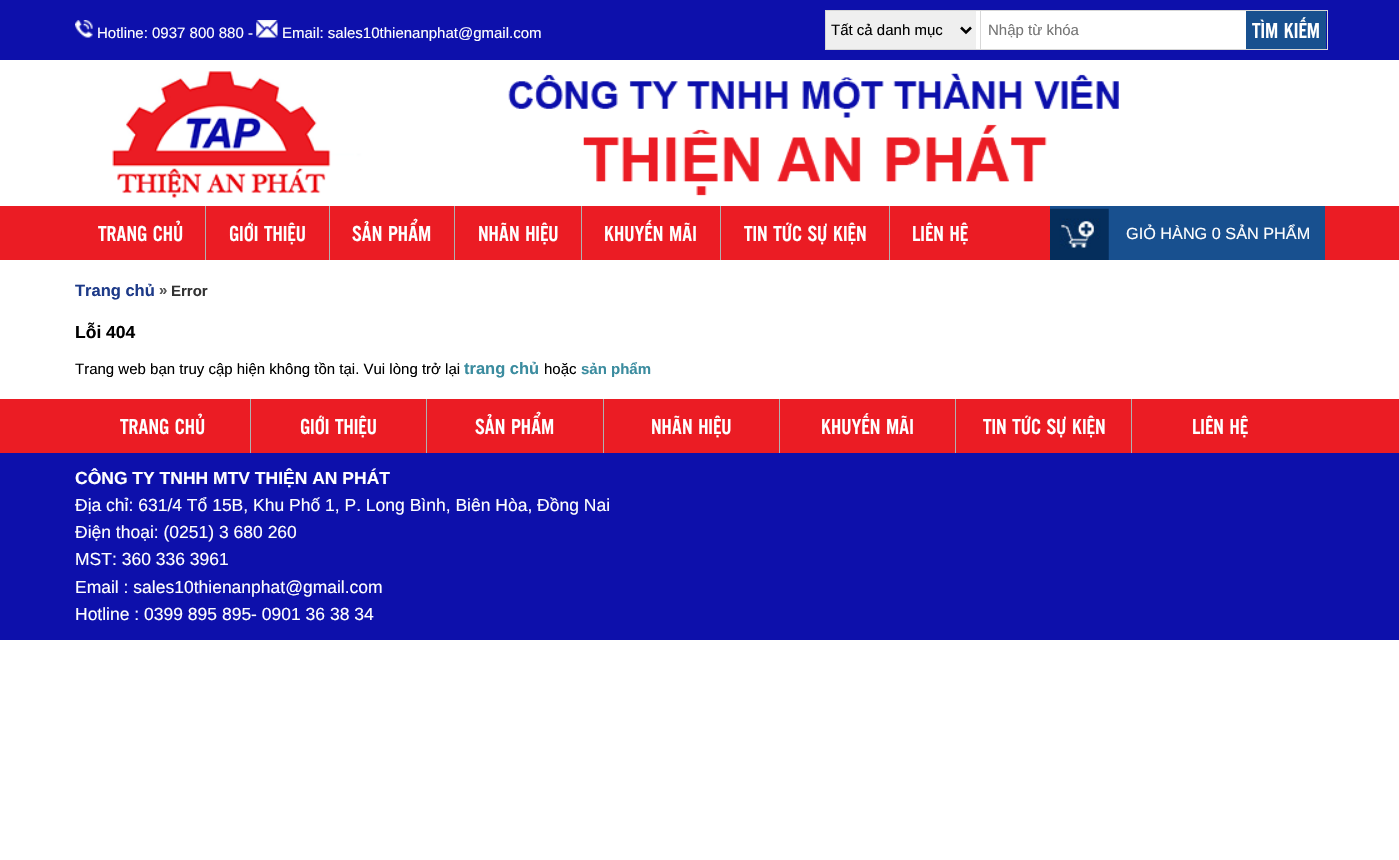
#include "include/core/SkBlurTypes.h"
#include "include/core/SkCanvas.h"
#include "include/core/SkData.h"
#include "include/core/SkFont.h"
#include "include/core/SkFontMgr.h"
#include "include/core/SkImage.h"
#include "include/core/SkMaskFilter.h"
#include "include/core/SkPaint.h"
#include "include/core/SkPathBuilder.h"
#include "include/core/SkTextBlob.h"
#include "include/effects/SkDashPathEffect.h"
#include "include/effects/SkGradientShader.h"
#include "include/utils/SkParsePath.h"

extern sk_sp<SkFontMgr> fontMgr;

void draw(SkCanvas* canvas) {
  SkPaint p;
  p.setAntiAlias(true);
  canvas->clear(SK_ColorWHITE);
  p.setColor(SkColorSetRGB(13, 16, 171));
  canvas->drawRect(SkRect::MakeLTRB(0, 0, 1399, 60), p);
  canvas->drawImageRect(SkImages::DeferredFromEncodedData(SkData::MakeFromFileName("images/1.png")), SkRect::MakeLTRB(75, 20, 93, 38), SkSamplingOptions());
  canvas->drawImageRect(SkImages::DeferredFromEncodedData(SkData::MakeFromFileName("images/2.png")), SkRect::MakeLTRB(256, 20, 278, 38), SkSamplingOptions());
  p.setColor(SK_ColorWHITE);
  canvas->drawRect(SkRect::MakeLTRB(976, 11, 1246, 49), p);
  p.setStyle(SkPaint::kStroke_Style);
  p.setStrokeWidth(1);
  p.setColor(SkColorSetRGB(215, 215, 215));
  canvas->drawRect(SkRect::MakeLTRB(825.5f, 10.5f, 1327.5f, 49.5f), p);
  p.setStyle(SkPaint::kFill_Style);
  p.setColor(SkColorSetRGB(239, 239, 239));
  canvas->drawRect(SkRect::MakeLTRB(826, 11, 976, 49), p);
  p.setStyle(SkPaint::kStroke_Style);
  p.setStrokeWidth(2.5f);
  p.setColor(SK_ColorBLACK);
  canvas->drawPath(SkPathBuilder().moveTo(961, 27.5f).lineTo(966, 32.5f).lineTo(971, 27.5f).detach(), p);
  p.setStyle(SkPaint::kFill_Style);
  p.setColor(SkColorSetRGB(215, 215, 215));
  canvas->drawRect(SkRect::MakeLTRB(980, 11, 981, 49), p);
  p.setColor(SkColorSetRGB(24, 80, 143));
  canvas->drawRect(SkRect::MakeLTRB(1246, 11, 1326, 49), p);
  canvas->drawImageRect(SkImages::DeferredFromEncodedData(SkData::MakeFromFileName("images/3.png")), SkRect::MakeLTRB(112, 71, 1119, 198), SkSamplingOptions());
  p.setColor(SkColorSetRGB(235, 28, 36));
  canvas->drawRect(SkRect::MakeLTRB(0, 206, 1399, 260), p);
  p.setColor(SkColorSetRGB(176, 176, 176));
  canvas->drawRect(SkRect::MakeLTRB(205, 206, 206, 260), p);
  canvas->drawRect(SkRect::MakeLTRB(329, 206, 330, 260), p);
  canvas->drawRect(SkRect::MakeLTRB(454, 206, 455, 260), p);
  canvas->drawRect(SkRect::MakeLTRB(581, 206, 582, 260), p);
  canvas->drawRect(SkRect::MakeLTRB(720, 206, 721, 260), p);
  canvas->drawRect(SkRect::MakeLTRB(889, 206, 890, 260), p);
  p.setColor(SkColorSetRGB(24, 80, 143));
  canvas->drawRect(SkRect::MakeLTRB(1050, 206, 1325, 260), p);
  canvas->drawImageRect(SkImages::DeferredFromEncodedData(SkData::MakeFromFileName("images/4.png")), SkRect::MakeLTRB(1050, 208, 1109, 260), SkSamplingOptions());
  p.setColor(SkColorSetRGB(235, 28, 36));
  canvas->drawRect(SkRect::MakeLTRB(0, 399, 1399, 453), p);
  p.setColor(SkColorSetRGB(176, 176, 176));
  canvas->drawRect(SkRect::MakeLTRB(250, 399, 251, 453), p);
  canvas->drawRect(SkRect::MakeLTRB(426, 399, 427, 453), p);
  canvas->drawRect(SkRect::MakeLTRB(603, 399, 604, 453), p);
  canvas->drawRect(SkRect::MakeLTRB(779, 399, 780, 453), p);
  canvas->drawRect(SkRect::MakeLTRB(955, 399, 956, 453), p);
  canvas->drawRect(SkRect::MakeLTRB(1131, 399, 1132, 453), p);
  p.setColor(SkColorSetRGB(13, 16, 171));
  canvas->drawRect(SkRect::MakeLTRB(0, 453, 1399, 640), p);
  SkFont font1(fontMgr->matchFamilyStyle("Liberation Sans", SkFontStyle::Normal()), 15);
  font1.setSubpixel(true);
  p.setColor(SK_ColorWHITE);
  canvas->drawString("Hotline: 0937 800 880 -", 97, 38, font1, p);
  canvas->drawString("Email: sales10thienanphat@gmail.com", 282, 38, font1, p);
  p.setColor(SK_ColorBLACK);
  canvas->drawString("Tất cả danh mục", 831, 35, font1, p);
  p.setColor(SkColorSetRGB(117, 117, 117));
  canvas->drawString("Nhập từ khóa", 988, 35, font1, p);
  SkFont font2(fontMgr->matchFamilyStyle("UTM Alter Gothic", SkFontStyle::Normal()), 22.5f);
  font2.setSubpixel(true);
  p.setColor(SK_ColorWHITE);
  canvas->drawString("TÌM KIẾM", 1252, 38, font2, p);
  canvas->drawString("TRANG CHỦ", 98, 241, font2, p);
  canvas->drawString("GIỚI THIỆU", 229, 241, font2, p);
  canvas->drawString("SẢN PHẨM", 352, 241, font2, p);
  canvas->drawString("NHÃN HIỆU", 478, 241, font2, p);
  canvas->drawString("KHUYẾN MÃI", 604, 241, font2, p);
  canvas->drawString("TIN TỨC SỰ KIỆN", 744, 241, font2, p);
  canvas->drawString("LIÊN HỆ", 912, 241, font2, p);
  SkFont font3(fontMgr->matchFamilyStyle("Liberation Sans", SkFontStyle::Normal()), 16.25f);
  font3.setSubpixel(true);
  canvas->drawString("GIỎ HÀNG 0 SẢN PHẨM", 1126, 239, font3, p);
  SkFont font4(fontMgr->matchFamilyStyle("Liberation Sans", SkFontStyle::Bold()), 16.5f);
  font4.setSubpixel(true);
  p.setColor(SkColorSetRGB(29, 58, 136));
  canvas->drawString("Trang chủ", 75, 296, font4, p);
  SkFont font5(fontMgr->matchFamilyStyle("Liberation Sans", SkFontStyle::Bold()), 15);
  font5.setSubpixel(true);
  p.setColor(SkColorSetRGB(85, 85, 85));
  canvas->drawString("»", 159, 295, font5, p);
  p.setColor(SkColorSetRGB(51, 51, 51));
  canvas->drawString("Error", 171, 296, font5, p);
  SkFont font6(fontMgr->matchFamilyStyle("Liberation Sans", SkFontStyle::Bold()), 17.5f);
  font6.setSubpixel(true);
  p.setColor(SK_ColorBLACK);
  canvas->drawString("Lỗi 404", 75, 338, font6, p);
  canvas->drawString("Trang web bạn truy cập hiện không tồn tại. Vui lòng trở lại", 75, 374, font1, p);
  p.setColor(SkColorSetRGB(59, 140, 159));
  canvas->drawString("trang chủ", 464, 374, font4, p);
  p.setColor(SK_ColorBLACK);
  canvas->drawString("hoặc", 544, 374, font1, p);
  p.setColor(SkColorSetRGB(59, 140, 159));
  canvas->drawString("sản phẩm", 581, 374, font5, p);
  p.setColor(SK_ColorWHITE);
  canvas->drawString("TRANG CHỦ", 120, 434, font2, p);
  canvas->drawString("GIỚI THIỆU", 300, 434, font2, p);
  canvas->drawString("SẢN PHẨM", 475, 434, font2, p);
  canvas->drawString("NHÃN HIỆU", 651, 434, font2, p);
  canvas->drawString("KHUYẾN MÃI", 821, 434, font2, p);
  canvas->drawString("TIN TỨC SỰ KIỆN", 983, 434, font2, p);
  canvas->drawString("LIÊN HỆ", 1192, 434, font2, p);
  canvas->drawString("CÔNG TY TNHH MTV THIỆN AN PHÁT", 75, 484, font6, p);
  SkFont font7(fontMgr->matchFamilyStyle("Liberation Sans", SkFontStyle::Normal()), 17.5f);
  font7.setSubpixel(true);
  canvas->drawString("Địa chỉ: 631/4 Tổ 15B, Khu Phố 1, P. Long Bình, Biên Hòa, Đồng Nai", 75, 511, font7, p);
  canvas->drawString("Điện thoại: (0251) 3 680 260", 75, 538, font7, p);
  canvas->drawString("MST: 360 336 3961", 75, 565, font7, p);
  canvas->drawString("Email : sales10thienanphat@gmail.com", 75, 593, font7, p);
  canvas->drawString("Hotline : 0399 895 895- 0901 36 38 34", 75, 620, font7, p);
}
